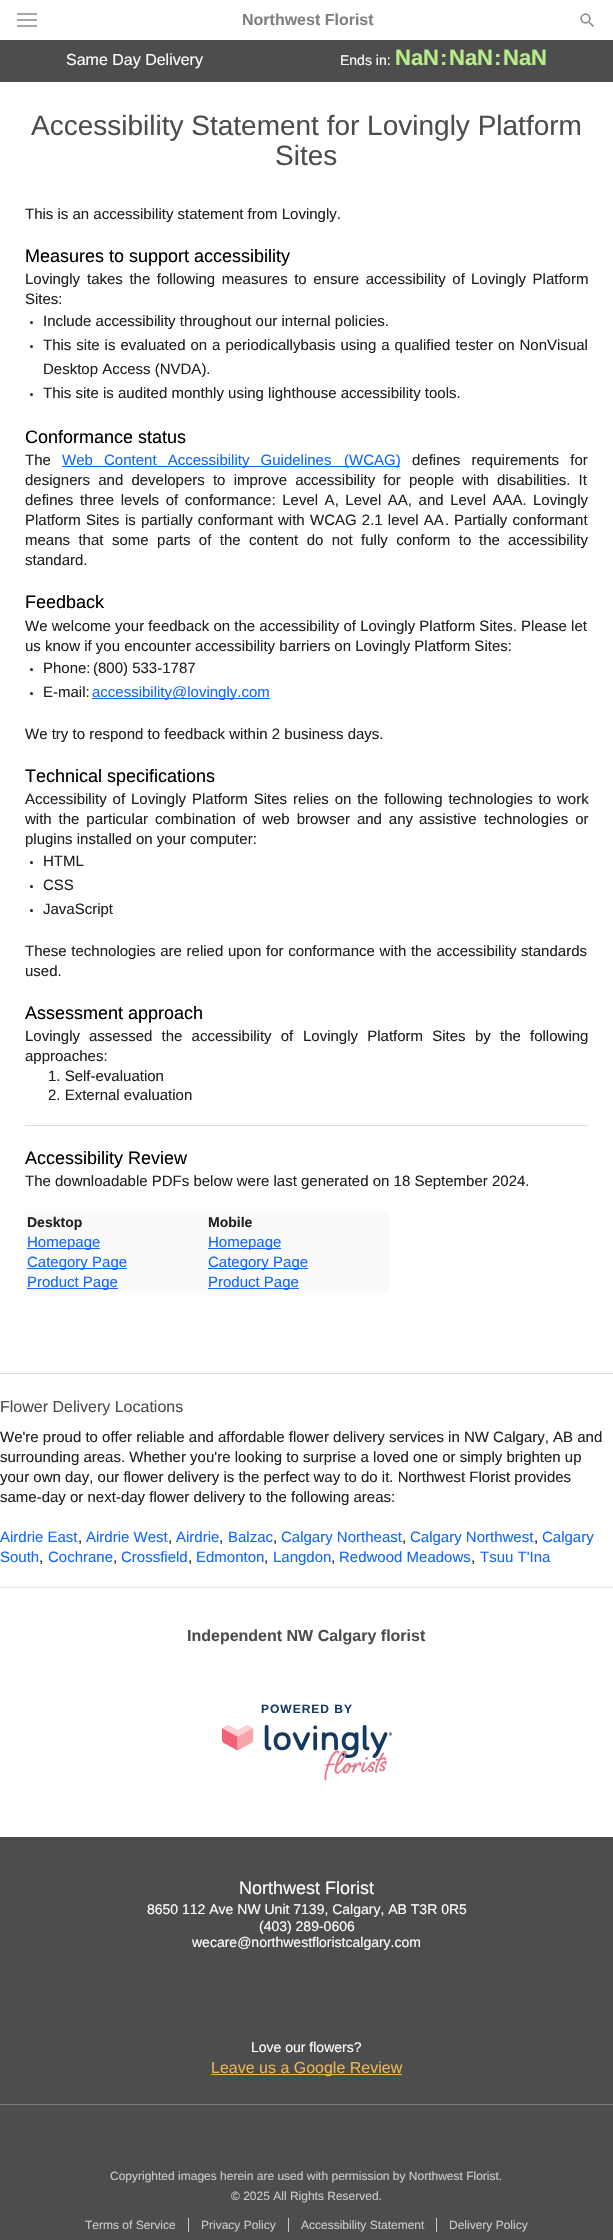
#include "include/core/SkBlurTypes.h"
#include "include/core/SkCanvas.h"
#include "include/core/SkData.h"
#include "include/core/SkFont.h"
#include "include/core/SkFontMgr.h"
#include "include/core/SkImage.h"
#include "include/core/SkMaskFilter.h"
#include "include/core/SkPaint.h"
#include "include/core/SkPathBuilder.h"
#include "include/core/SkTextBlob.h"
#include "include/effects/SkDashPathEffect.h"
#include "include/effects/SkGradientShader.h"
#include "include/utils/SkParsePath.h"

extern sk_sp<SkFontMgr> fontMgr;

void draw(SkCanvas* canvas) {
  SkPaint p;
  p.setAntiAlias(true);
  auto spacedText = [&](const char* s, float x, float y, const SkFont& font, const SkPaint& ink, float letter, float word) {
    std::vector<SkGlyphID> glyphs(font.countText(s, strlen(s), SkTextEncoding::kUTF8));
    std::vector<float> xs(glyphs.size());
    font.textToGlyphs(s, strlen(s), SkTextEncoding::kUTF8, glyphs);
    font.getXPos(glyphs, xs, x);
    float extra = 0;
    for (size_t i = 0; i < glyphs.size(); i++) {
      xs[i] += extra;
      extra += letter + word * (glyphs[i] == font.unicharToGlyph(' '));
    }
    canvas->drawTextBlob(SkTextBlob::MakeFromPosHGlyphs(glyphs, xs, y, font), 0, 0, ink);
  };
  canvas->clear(SK_ColorWHITE);
  p.setColor(SkColorSetRGB(166, 166, 166));
  canvas->drawRect(SkRect::MakeLTRB(17, 19, 37, 21), p);
  canvas->drawRect(SkRect::MakeLTRB(17, 13, 37, 15), p);
  canvas->drawRect(SkRect::MakeLTRB(17, 25, 37, 27), p);
  canvas->drawImageRect(SkImages::DeferredFromEncodedData(SkData::MakeFromFileName("images/1.png")), SkRect::MakeLTRB(580, 13, 594, 28), SkSamplingOptions());
  p.setColor(SkColorSetRGB(77, 77, 77));
  canvas->drawRect(SkRect::MakeLTRB(0, 40, 613, 82), p);
  p.setColor(SkColorSetRGB(33, 33, 33));
  canvas->drawCircle(31.5f, 322.5f, 1.5f, p);
  canvas->drawCircle(31.5f, 346.5f, 1.5f, p);
  canvas->drawCircle(31.5f, 394.5f, 1.5f, p);
  p.setColor(SkColorSetRGB(19, 104, 251));
  canvas->drawRect(SkRect::MakeLTRB(62, 466, 400, 467), p);
  p.setColor(SkColorSetRGB(33, 33, 33));
  canvas->drawCircle(31.5f, 669.5f, 1.5f, p);
  canvas->drawCircle(31.5f, 693.5f, 1.5f, p);
  p.setColor(SkColorSetRGB(19, 104, 251));
  canvas->drawRect(SkRect::MakeLTRB(92, 698, 270, 699), p);
  p.setColor(SkColorSetRGB(33, 33, 33));
  canvas->drawCircle(31.5f, 862.5f, 1.5f, p);
  canvas->drawCircle(31.5f, 886.5f, 1.5f, p);
  canvas->drawCircle(31.5f, 910.5f, 1.5f, p);
  p.setColor(SkColorSetRGB(221, 221, 221));
  canvas->drawRect(SkRect::MakeLTRB(25, 1125, 588, 1126), p);
  p.setColor(SkColorSetRGB(250, 250, 250));
  canvas->drawRect(SkRect::MakeLTRB(25, 1211, 389, 1293), p);
  p.setColor(SkColorSetRGB(19, 104, 251));
  canvas->drawRect(SkRect::MakeLTRB(27, 1248, 100, 1249), p);
  canvas->drawRect(SkRect::MakeLTRB(208, 1248, 281, 1249), p);
  canvas->drawRect(SkRect::MakeLTRB(27, 1268, 127, 1269), p);
  canvas->drawRect(SkRect::MakeLTRB(208, 1268, 308, 1269), p);
  canvas->drawRect(SkRect::MakeLTRB(27, 1288, 118, 1289), p);
  canvas->drawRect(SkRect::MakeLTRB(208, 1288, 299, 1289), p);
  p.setColor(SkColorSetRGB(221, 221, 221));
  canvas->drawRect(SkRect::MakeLTRB(0, 1373, 613, 1374), p);
  p.setColor(SkColorSetRGB(230, 230, 230));
  canvas->drawRect(SkRect::MakeLTRB(0, 1587, 613, 1588), p);
  canvas->drawImageRect(SkImages::DeferredFromEncodedData(SkData::MakeFromFileName("images/2.png")), SkRect::MakeLTRB(222, 1725, 392, 1780), SkSamplingOptions());
  p.setColor(SkColorSetRGB(77, 77, 77));
  canvas->drawRect(SkRect::MakeLTRB(0, 1837, 613, 2240), p);
  p.setColor(SkColorSetRGB(236, 182, 80));
  canvas->drawRect(SkRect::MakeLTRB(211, 2074, 402, 2075), p);
  p.setColor(SkColorSetRGB(122, 122, 122));
  canvas->drawRect(SkRect::MakeLTRB(0, 2104, 613, 2105), p);
  p.setColor(SkColorSetRGB(202, 202, 202));
  canvas->drawRect(SkRect::MakeLTRB(188, 2218, 189, 2232), p);
  canvas->drawRect(SkRect::MakeLTRB(288, 2218, 289, 2232), p);
  canvas->drawRect(SkRect::MakeLTRB(436, 2218, 437, 2232), p);
  SkFont font1(fontMgr->matchFamilyStyle("Liberation Sans", SkFontStyle::Bold()), 16);
  font1.setSubpixel(true);
  p.setColor(SkColorSetRGB(128, 128, 128));
  canvas->drawString("Northwest Florist", 242, 25, font1, p);
  SkFont font2(fontMgr->matchFamilyStyle("Liberation Sans", SkFontStyle::Normal()), 16);
  font2.setSubpixel(true);
  p.setColor(SK_ColorWHITE);
  canvas->drawString("Same Day Delivery", 66, 65, font2, p);
  SkFont font3(fontMgr->matchFamilyStyle("Liberation Sans", SkFontStyle::Normal()), 14);
  font3.setSubpixel(true);
  canvas->drawString("Ends in:", 340, 65, font3, p);
  SkFont font4(fontMgr->matchFamilyStyle("Liberation Sans", SkFontStyle::Bold()), 22);
  font4.setSubpixel(true);
  p.setColor(SkColorSetRGB(184, 235, 137));
  canvas->drawString("NaN", 395, 65, font4, p);
  canvas->drawString(":", 440, 65, font4, p);
  canvas->drawString("NaN", 449, 65, font4, p);
  canvas->drawString(":", 494, 65, font4, p);
  canvas->drawString("NaN", 503, 65, font4, p);
  SkFont font5(fontMgr->matchFamilyStyle("Liberation Sans", SkFontStyle::Normal()), 28);
  font5.setSubpixel(true);
  p.setColor(SkColorSetRGB(77, 77, 77));
  canvas->drawString("Accessibility Statement for Lovingly Platform", 31, 135, font5, p);
  canvas->drawString("Sites", 275, 165, font5, p);
  SkFont font6(fontMgr->matchFamilyStyle("Liberation Sans", SkFontStyle::Normal()), 15);
  font6.setSubpixel(true);
  p.setColor(SkColorSetRGB(33, 33, 33));
  canvas->drawString("This is an accessibility statement from Lovingly.", 25, 219, font6, p);
  SkFont font7(fontMgr->matchFamilyStyle("Liberation Sans", SkFontStyle::Normal()), 18);
  font7.setSubpixel(true);
  p.setColor(SK_ColorBLACK);
  canvas->drawString("Measures to support accessibility", 25, 262, font7, p);
  p.setColor(SkColorSetRGB(33, 33, 33));
  canvas->drawString("Lovingly", 25, 284, font6, p);
  spacedText("takes the following measures to ensure accessibility of", 87, 284, font6, p, 0, 2.4f);
  spacedText("Lovingly Platform", 471, 284, font6, p, 0, 2.4f);
  canvas->drawString("Sites:", 25, 304, font6, p);
  canvas->drawString("Include accessibility throughout our internal policies.", 43, 326, font6, p);
  spacedText("This site is evaluated on a periodicallybasis using a qualified tester on NonVisual", 43, 350, font6, p, 0, 0.8f);
  canvas->drawString("Desktop Access (NVDA).", 43, 374, font6, p);
  canvas->drawString("This site is audited monthly using lighthouse accessibility tools.", 43, 398, font6, p);
  p.setColor(SK_ColorBLACK);
  canvas->drawString("Conformance status", 25, 443, font7, p);
  p.setColor(SkColorSetRGB(33, 33, 33));
  canvas->drawString("The", 25, 465, font6, p);
  p.setColor(SkColorSetRGB(19, 104, 251));
  spacedText("Web Content Accessibility Guidelines", 62, 465, font6, p, 0, 7);
  canvas->drawString("(WCAG)", 344, 465, font6, p);
  p.setColor(SkColorSetRGB(33, 33, 33));
  spacedText("defines requirements for", 412, 465, font6, p, 0, 7);
  spacedText("designers and developers to improve accessibility for people with disabilities. It", 25, 485, font6, p, 0, 4);
  canvas->drawString("defines", 25, 505, font6, p);
  spacedText("three levels of conformance: Level A, Level AA, and Level AAA.", 80, 505, font6, p, 0, 2.4f);
  canvas->drawString("Lovingly", 533, 505, font6, p);
  spacedText("Platform Sites", 25, 525, font6, p, 0, 1);
  canvas->drawString("is", 125, 525, font6, p);
  spacedText("partially conformant", 141, 525, font6, p, 0, 1);
  canvas->drawString("with", 278, 525, font6, p);
  spacedText("WCAG 2.1 level AA", 310, 525, font6, p, 0, 1);
  canvas->drawString(".", 445, 525, font6, p);
  spacedText("Partially conformant", 454, 525, font6, p, 0, 1);
  spacedText("means that", 25, 545, font6, p, 0, 4.25f);
  spacedText("some parts of the content do not fully conform to", 112, 545, font6, p, 0, 4.25f);
  canvas->drawString("the", 479, 545, font6, p);
  canvas->drawString("accessibility", 508, 545, font6, p);
  canvas->drawString("standard.", 25, 565, font6, p);
  p.setColor(SK_ColorBLACK);
  canvas->drawString("Feedback", 25, 608, font7, p);
  p.setColor(SkColorSetRGB(33, 33, 33));
  canvas->drawString("We welcome your feedback on the accessibility of Lovingly Platform Sites. Please let", 25, 631, font6, p);
  canvas->drawString("us know if you encounter accessibility barriers on Lovingly Platform Sites:", 25, 651, font6, p);
  canvas->drawString("Phone:", 43, 673, font6, p);
  canvas->drawString("(800) 533-1787", 93, 673, font6, p);
  canvas->drawString("E-mail:", 43, 697, font6, p);
  p.setColor(SkColorSetRGB(19, 104, 251));
  canvas->drawString("accessibility@lovingly.com", 92, 697, font6, p);
  p.setColor(SkColorSetRGB(33, 33, 33));
  canvas->drawString("We try to respond to feedback within 2 business days.", 25, 739, font6, p);
  p.setColor(SK_ColorBLACK);
  canvas->drawString("Technical specifications", 25, 782, font7, p);
  p.setColor(SkColorSetRGB(33, 33, 33));
  spacedText("Accessibility of", 25, 804, font6, p, 0, 1.75f);
  spacedText("Lovingly Platform Sites", 131, 804, font6, p, 0, 1.75f);
  spacedText("relies on the following technologies to work", 293, 804, font6, p, 0, 1.75f);
  spacedText("with the particular combination of web browser and any", 25, 824, font6, p, 0, 2.75f);
  canvas->drawString("assistive", 419, 824, font6, p);
  spacedText("technologies or", 484, 824, font6, p, 0, 2.75f);
  canvas->drawString("plugins installed on your computer:", 25, 844, font6, p);
  canvas->drawString("HTML", 43, 866, font6, p);
  canvas->drawString("CSS", 43, 890, font6, p);
  canvas->drawString("JavaScript", 43, 914, font6, p);
  spacedText("These technologies are relied upon for conformance with the accessibility standards", 25, 956, font6, p, 0, 0.5f);
  canvas->drawString("used.", 25, 976, font6, p);
  p.setColor(SK_ColorBLACK);
  canvas->drawString("Assessment approach", 25, 1019, font7, p);
  p.setColor(SkColorSetRGB(33, 33, 33));
  canvas->drawString("Lovingly", 25, 1041, font6, p);
  spacedText("assessed the accessibility of", 89, 1041, font6, p, 0, 5);
  spacedText("Lovingly Platform Sites", 303, 1041, font6, p, 0, 5);
  spacedText("by the following", 475, 1041, font6, p, 0, 5);
  canvas->drawString("approaches:", 25, 1061, font6, p);
  canvas->drawString("1. Self-evaluation", 48, 1081, font6, p);
  canvas->drawString("2. External evaluation", 48, 1100, font6, p);
  p.setColor(SK_ColorBLACK);
  canvas->drawString("Accessibility Review", 25, 1164, font7, p);
  p.setColor(SkColorSetRGB(33, 33, 33));
  canvas->drawString("The downloadable PDFs below were last generated on 18 September 2024.", 25, 1186, font6, p);
  SkFont font8(fontMgr->matchFamilyStyle("Liberation Sans", SkFontStyle::Bold()), 14);
  font8.setSubpixel(true);
  canvas->drawString("Desktop", 27, 1227, font8, p);
  canvas->drawString("Mobile", 208, 1227, font8, p);
  p.setColor(SkColorSetRGB(19, 104, 251));
  canvas->drawString("Homepage", 27, 1247, font6, p);
  canvas->drawString("Homepage", 208, 1247, font6, p);
  canvas->drawString("Category Page", 27, 1267, font6, p);
  canvas->drawString("Category Page", 208, 1267, font6, p);
  canvas->drawString("Product Page", 27, 1287, font6, p);
  canvas->drawString("Product Page", 208, 1287, font6, p);
  p.setColor(SkColorSetRGB(77, 77, 77));
  canvas->drawString("Flower Delivery Locations", 0, 1412, font2, p);
  p.setColor(SkColorSetRGB(33, 33, 33));
  canvas->drawString("We're proud to offer reliable and affordable flower delivery services in NW Calgary, AB and", 0, 1442, font6, p);
  canvas->drawString("surrounding areas. Whether you're looking to surprise a loved one or simply brighten up", 0, 1462, font6, p);
  canvas->drawString("your own day, our flower delivery is the perfect way to do it. Northwest Florist provides", 0, 1482, font6, p);
  canvas->drawString("same-day or next-day flower delivery to the following areas:", 0, 1502, font6, p);
  p.setColor(SkColorSetRGB(19, 104, 251));
  canvas->drawString("Airdrie East", 0, 1542, font6, p);
  p.setColor(SkColorSetRGB(33, 33, 33));
  canvas->drawString(",", 78, 1542, font6, p);
  p.setColor(SkColorSetRGB(19, 104, 251));
  canvas->drawString("Airdrie West", 86, 1542, font6, p);
  p.setColor(SkColorSetRGB(33, 33, 33));
  canvas->drawString(",", 168, 1542, font6, p);
  p.setColor(SkColorSetRGB(19, 104, 251));
  canvas->drawString("Airdrie", 176, 1542, font6, p);
  p.setColor(SkColorSetRGB(33, 33, 33));
  canvas->drawString(",", 219, 1542, font6, p);
  p.setColor(SkColorSetRGB(19, 104, 251));
  canvas->drawString("Balzac", 228, 1542, font6, p);
  p.setColor(SkColorSetRGB(33, 33, 33));
  canvas->drawString(",", 273, 1542, font6, p);
  p.setColor(SkColorSetRGB(19, 104, 251));
  canvas->drawString("Calgary Northeast", 281, 1542, font6, p);
  p.setColor(SkColorSetRGB(33, 33, 33));
  canvas->drawString(",", 402, 1542, font6, p);
  p.setColor(SkColorSetRGB(19, 104, 251));
  canvas->drawString("Calgary Northwest", 410, 1542, font6, p);
  p.setColor(SkColorSetRGB(33, 33, 33));
  canvas->drawString(",", 534, 1542, font6, p);
  p.setColor(SkColorSetRGB(19, 104, 251));
  canvas->drawString("Calgary", 542, 1542, font6, p);
  canvas->drawString("South", 0, 1562, font6, p);
  p.setColor(SkColorSetRGB(33, 33, 33));
  canvas->drawString(",", 39, 1562, font6, p);
  p.setColor(SkColorSetRGB(19, 104, 251));
  canvas->drawString("Cochrane", 48, 1562, font6, p);
  p.setColor(SkColorSetRGB(33, 33, 33));
  canvas->drawString(",", 113, 1562, font6, p);
  p.setColor(SkColorSetRGB(19, 104, 251));
  canvas->drawString("Crossfield", 121, 1562, font6, p);
  p.setColor(SkColorSetRGB(33, 33, 33));
  canvas->drawString(",", 188, 1562, font6, p);
  p.setColor(SkColorSetRGB(19, 104, 251));
  canvas->drawString("Edmonton", 196, 1562, font6, p);
  p.setColor(SkColorSetRGB(33, 33, 33));
  canvas->drawString(",", 264, 1562, font6, p);
  p.setColor(SkColorSetRGB(19, 104, 251));
  canvas->drawString("Langdon", 273, 1562, font6, p);
  p.setColor(SkColorSetRGB(33, 33, 33));
  canvas->drawString(",", 331, 1562, font6, p);
  p.setColor(SkColorSetRGB(19, 104, 251));
  canvas->drawString("Redwood Meadows", 339, 1562, font6, p);
  p.setColor(SkColorSetRGB(33, 33, 33));
  canvas->drawString(",", 471, 1562, font6, p);
  p.setColor(SkColorSetRGB(19, 104, 251));
  canvas->drawString("Tsuu T'Ina", 480, 1562, font6, p);
  p.setColor(SkColorSetRGB(77, 77, 77));
  canvas->drawString("Independent NW Calgary florist", 187, 1641, font1, p);
  SkFont font9(fontMgr->matchFamilyStyle("Liberation Sans", SkFontStyle::Bold()), 12);
  font9.setSubpixel(true);
  p.setColor(SkColorSetRGB(23, 58, 100));
  spacedText("POWERED BY", 261, 1713, font9, p, 1, 0);
  p.setColor(SK_ColorWHITE);
  canvas->drawString("Northwest Florist", 239, 1894, font7, p);
  canvas->drawString("8650 112 Ave NW Unit 7139, Calgary, AB T3R 0R5", 147, 1914, font3, p);
  canvas->drawString("(403) 289-0606", 259, 1931, font3, p);
  canvas->drawString("wecare@northwestfloristcalgary.com", 192, 1947, font3, p);
  canvas->drawString("Love our flowers?", 251, 2052, font3, p);
  p.setColor(SkColorSetRGB(236, 182, 80));
  canvas->drawString("Leave us a Google Review", 211, 2073, font2, p);
  SkFont font10(fontMgr->matchFamilyStyle("Liberation Sans", SkFontStyle::Normal()), 12);
  font10.setSubpixel(true);
  p.setColor(SkColorSetRGB(202, 202, 202));
  canvas->drawString("Copyrighted images herein are used with permission by Northwest Florist.", 110, 2180, font10, p);
  canvas->drawString("© 2025 All Rights Reserved.", 231, 2200, font10, p);
  canvas->drawString("Terms of Service", 85, 2229, font10, p);
  canvas->drawString("Privacy Policy", 201, 2229, font10, p);
  canvas->drawString("Accessibility Statement", 301, 2229, font10, p);
  canvas->drawString("Delivery Policy", 449, 2229, font10, p);
}
